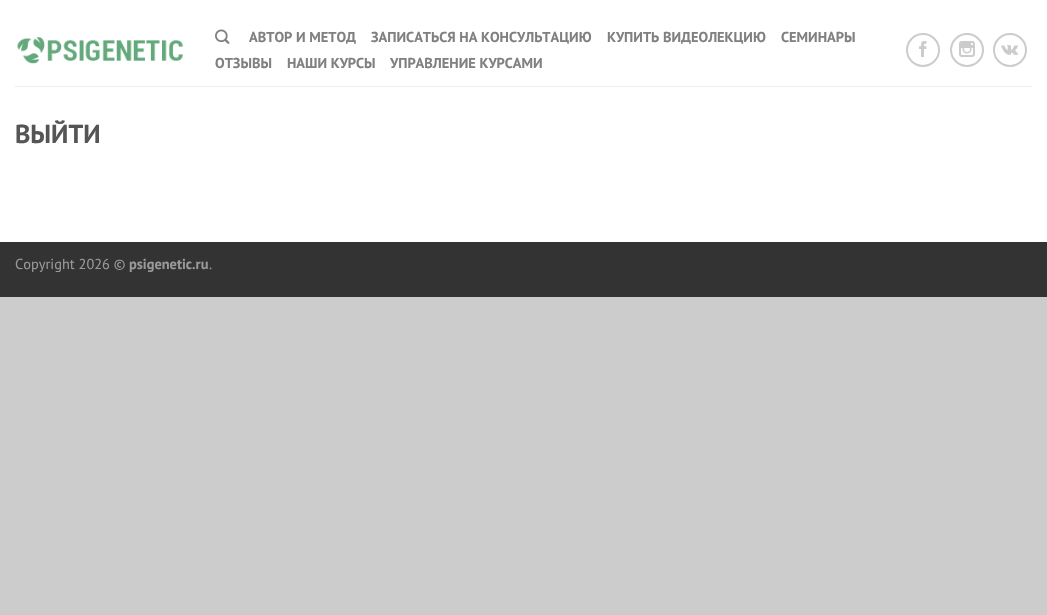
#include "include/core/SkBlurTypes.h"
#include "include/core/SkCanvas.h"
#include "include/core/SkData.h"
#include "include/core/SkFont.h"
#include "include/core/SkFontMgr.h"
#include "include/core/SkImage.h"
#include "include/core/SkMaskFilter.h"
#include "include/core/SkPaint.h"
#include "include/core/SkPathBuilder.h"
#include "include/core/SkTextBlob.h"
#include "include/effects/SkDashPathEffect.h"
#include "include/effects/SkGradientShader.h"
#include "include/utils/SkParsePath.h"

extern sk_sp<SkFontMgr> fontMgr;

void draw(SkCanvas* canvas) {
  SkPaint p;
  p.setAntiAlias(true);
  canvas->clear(SkColorSetRGB(204, 204, 204));
  p.setColor(SK_ColorWHITE);
  canvas->drawRect(SkRect::MakeLTRB(0, 0, 1047, 242), p);
  canvas->drawImageRect(SkImages::DeferredFromEncodedData(SkData::MakeFromFileName("images/1.png")), SkRect::MakeLTRB(17, 37, 184, 64), SkSamplingOptions());
  canvas->drawImageRect(SkImages::DeferredFromEncodedData(SkData::MakeFromFileName("images/2.png")), SkRect::MakeLTRB(215, 29, 230, 44), SkSamplingOptions());
  p.setStyle(SkPaint::kStroke_Style);
  p.setStrokeWidth(2);
  p.setColor(SkColorSetRGB(204, 204, 204));
  canvas->drawCircle(923, 50, 16, p);
  canvas->drawImageRect(SkImages::DeferredFromEncodedData(SkData::MakeFromFileName("images/3.png")), SkRect::MakeLTRB(919, 41, 927, 57), SkSamplingOptions());
  canvas->drawCircle(967, 50, 16, p);
  canvas->drawImageRect(SkImages::DeferredFromEncodedData(SkData::MakeFromFileName("images/4.png")), SkRect::MakeLTRB(959, 41, 975, 57), SkSamplingOptions());
  canvas->drawCircle(1010, 50, 16, p);
  canvas->drawImageRect(SkImages::DeferredFromEncodedData(SkData::MakeFromFileName("images/5.png")), SkRect::MakeLTRB(1001, 45, 1018, 55), SkSamplingOptions());
  p.setStyle(SkPaint::kFill_Style);
  p.setColor(SkColorSetRGB(238, 238, 238));
  canvas->drawRect(SkRect::MakeLTRB(15, 86, 1032, 87), p);
  p.setColor(SkColorSetRGB(51, 51, 51));
  canvas->drawRect(SkRect::MakeLTRB(0, 242, 1047, 297), p);
  SkFont font1(fontMgr->matchFamilyStyle("PT Sans", SkFontStyle::Bold()), 14.4f);
  font1.setSubpixel(true);
  p.setColor(SkColorSetRGB(128, 128, 128));
  canvas->drawString("АВТОР И МЕТОД", 249, 42, font1, p);
  canvas->drawString("ЗАПИСАТЬСЯ НА КОНСУЛЬТАЦИЮ", 371, 42, font1, p);
  canvas->drawString("КУПИТЬ ВИДЕОЛЕКЦИЮ", 607, 42, font1, p);
  canvas->drawString("СЕМИНАРЫ", 781, 42, font1, p);
  canvas->drawString("ОТЗЫВЫ", 215, 68, font1, p);
  canvas->drawString("НАШИ КУРСЫ", 287, 68, font1, p);
  canvas->drawString("УПРАВЛЕНИЕ КУРСАМИ", 390, 68, font1, p);
  SkFont font2(fontMgr->matchFamilyStyle("PT Sans", SkFontStyle::Bold()), 26);
  font2.setSubpixel(true);
  p.setColor(SkColorSetRGB(85, 85, 85));
  canvas->drawString("ВЫЙТИ", 15, 143, font2, p);
  SkFont font3(fontMgr->matchFamilyStyle("PT Sans", SkFontStyle::Normal()), 14.4f);
  font3.setSubpixel(true);
  p.setColor(SkColorSetRGB(153, 153, 153));
  canvas->drawString("Copyright 2026 ©", 15, 269, font3, p);
  canvas->drawString("psigenetic.ru", 129, 269, font1, p);
  canvas->drawString(".", 209, 269, font3, p);
}
